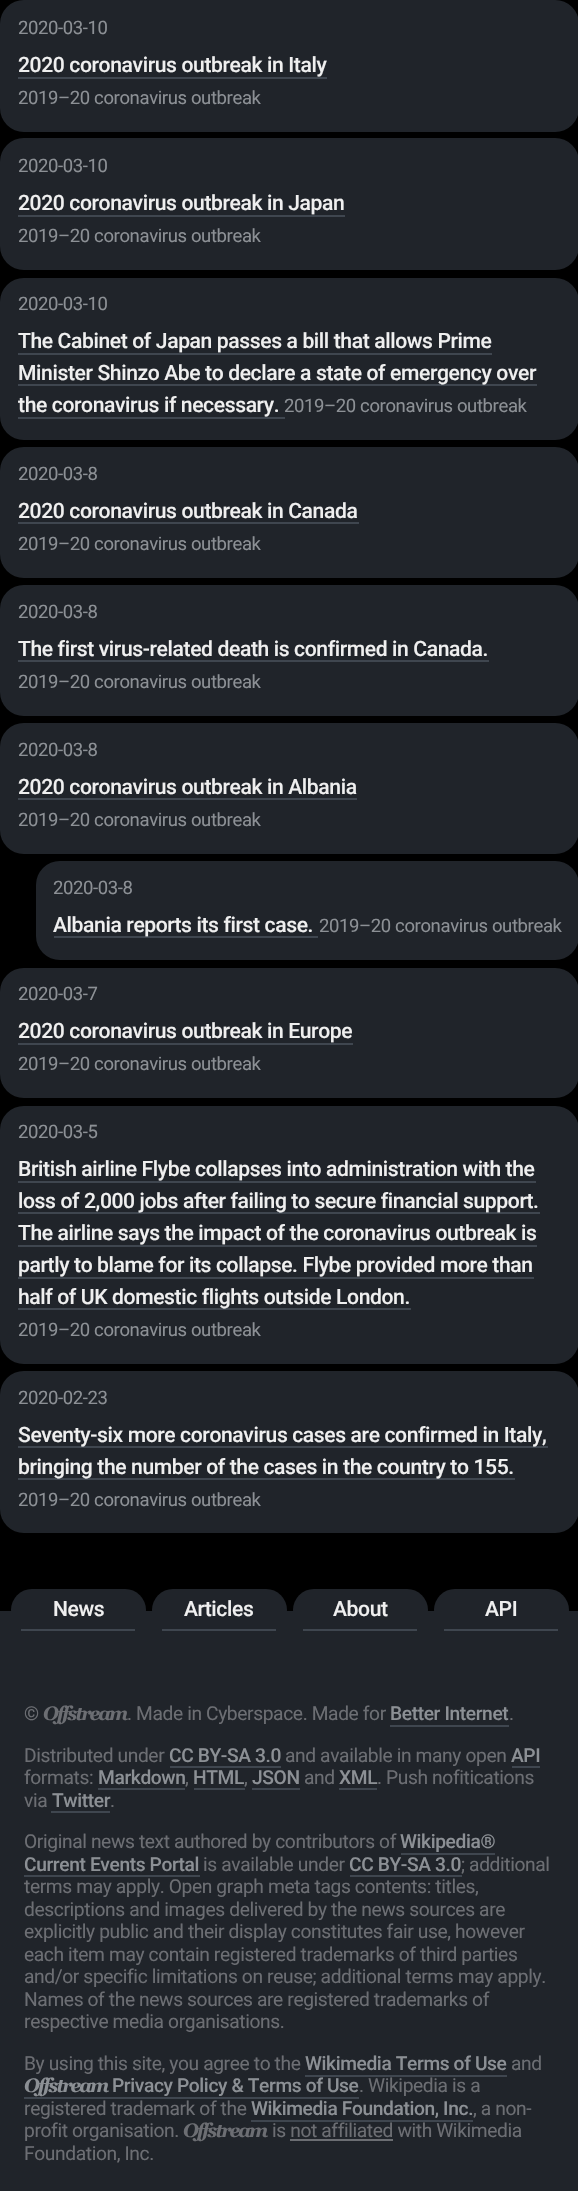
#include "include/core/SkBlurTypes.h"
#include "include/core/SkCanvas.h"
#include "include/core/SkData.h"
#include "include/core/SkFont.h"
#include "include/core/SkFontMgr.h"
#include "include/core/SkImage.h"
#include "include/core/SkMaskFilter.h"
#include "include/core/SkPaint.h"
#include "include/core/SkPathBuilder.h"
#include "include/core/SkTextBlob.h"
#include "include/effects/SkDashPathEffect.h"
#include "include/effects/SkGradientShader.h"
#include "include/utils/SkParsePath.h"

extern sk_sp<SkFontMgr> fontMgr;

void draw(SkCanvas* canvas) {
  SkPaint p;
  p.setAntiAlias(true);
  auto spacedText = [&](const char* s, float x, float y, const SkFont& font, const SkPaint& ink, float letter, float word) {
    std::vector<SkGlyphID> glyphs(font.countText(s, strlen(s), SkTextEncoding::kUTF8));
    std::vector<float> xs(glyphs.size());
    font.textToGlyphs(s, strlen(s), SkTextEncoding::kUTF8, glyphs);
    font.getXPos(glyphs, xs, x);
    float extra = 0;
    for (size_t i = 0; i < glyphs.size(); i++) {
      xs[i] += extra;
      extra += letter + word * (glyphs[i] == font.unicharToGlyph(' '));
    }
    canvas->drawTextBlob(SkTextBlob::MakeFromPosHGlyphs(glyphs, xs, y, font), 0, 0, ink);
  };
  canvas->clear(SK_ColorBLACK);
  p.setColor(SkColorSetRGB(32, 36, 42));
  canvas->drawRoundRect(SkRect::MakeLTRB(0, 0, 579, 132), 24, 24, p);
  p.setColor(SkColorSetRGB(63, 70, 79));
  canvas->drawRect(SkRect::MakeLTRB(18, 77, 327, 79), p);
  p.setColor(SkColorSetRGB(32, 36, 42));
  canvas->drawRoundRect(SkRect::MakeLTRB(0, 138, 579, 270), 24, 24, p);
  p.setColor(SkColorSetRGB(63, 70, 79));
  canvas->drawRect(SkRect::MakeLTRB(18, 215, 345, 217), p);
  p.setColor(SkColorSetRGB(32, 36, 42));
  canvas->drawRoundRect(SkRect::MakeLTRB(0, 278, 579, 440), 24, 24, p);
  p.setColor(SkColorSetRGB(63, 70, 79));
  canvas->drawRect(SkRect::MakeLTRB(18, 353, 492, 355), p);
  canvas->drawRect(SkRect::MakeLTRB(18, 384, 537, 386), p);
  canvas->drawRect(SkRect::MakeLTRB(18, 417, 285, 419), p);
  p.setColor(SkColorSetRGB(32, 36, 42));
  canvas->drawRoundRect(SkRect::MakeLTRB(0, 447, 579, 578), 24, 24, p);
  p.setColor(SkColorSetRGB(63, 70, 79));
  canvas->drawRect(SkRect::MakeLTRB(18, 522, 359, 524), p);
  p.setColor(SkColorSetRGB(32, 36, 42));
  canvas->drawRoundRect(SkRect::MakeLTRB(0, 585, 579, 716), 24, 24, p);
  p.setColor(SkColorSetRGB(63, 70, 79));
  canvas->drawRect(SkRect::MakeLTRB(18, 660, 489, 662), p);
  p.setColor(SkColorSetRGB(32, 36, 42));
  canvas->drawRoundRect(SkRect::MakeLTRB(0, 723, 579, 854), 24, 24, p);
  p.setColor(SkColorSetRGB(63, 70, 79));
  canvas->drawRect(SkRect::MakeLTRB(18, 798, 357, 800), p);
  p.setColor(SkColorSetRGB(32, 36, 42));
  canvas->drawRoundRect(SkRect::MakeLTRB(36, 861, 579, 960), 24, 24, p);
  p.setColor(SkColorSetRGB(63, 70, 79));
  canvas->drawRect(SkRect::MakeLTRB(54, 936, 318, 938), p);
  p.setColor(SkColorSetRGB(32, 36, 42));
  canvas->drawRoundRect(SkRect::MakeLTRB(0, 968, 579, 1098), 24, 24, p);
  p.setColor(SkColorSetRGB(63, 70, 79));
  canvas->drawRect(SkRect::MakeLTRB(18, 1043, 353, 1045), p);
  p.setColor(SkColorSetRGB(32, 36, 42));
  canvas->drawRoundRect(SkRect::MakeLTRB(0, 1106, 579, 1364), 24, 24, p);
  p.setColor(SkColorSetRGB(63, 70, 79));
  canvas->drawRect(SkRect::MakeLTRB(18, 1181, 536, 1183), p);
  canvas->drawRect(SkRect::MakeLTRB(18, 1212, 540, 1214), p);
  canvas->drawRect(SkRect::MakeLTRB(18, 1245, 537, 1247), p);
  canvas->drawRect(SkRect::MakeLTRB(18, 1277, 534, 1279), p);
  canvas->drawRect(SkRect::MakeLTRB(18, 1308, 411, 1310), p);
  p.setColor(SkColorSetRGB(32, 36, 42));
  canvas->drawRoundRect(SkRect::MakeLTRB(0, 1371, 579, 1533), 24, 24, p);
  p.setColor(SkColorSetRGB(63, 70, 79));
  canvas->drawRect(SkRect::MakeLTRB(18, 1446, 548, 1448), p);
  canvas->drawRect(SkRect::MakeLTRB(18, 1478, 515, 1480), p);
  p.setColor(SkColorSetRGB(32, 36, 42));
  canvas->drawRect(SkRect::MakeLTRB(0, 1611, 578, 2191), p);
  canvas->drawRoundRect(SkRect::MakeLTRB(11, 1589, 146, 1631), 21, 21, p);
  p.setColor(SkColorSetRGB(63, 70, 79));
  canvas->drawRect(SkRect::MakeLTRB(21, 1629, 135, 1631), p);
  p.setColor(SkColorSetRGB(32, 36, 42));
  canvas->drawRoundRect(SkRect::MakeLTRB(152, 1589, 287, 1631), 21, 21, p);
  p.setColor(SkColorSetRGB(63, 70, 79));
  canvas->drawRect(SkRect::MakeLTRB(162, 1629, 276, 1631), p);
  p.setColor(SkColorSetRGB(32, 36, 42));
  canvas->drawRoundRect(SkRect::MakeLTRB(293, 1589, 428, 1631), 21, 21, p);
  p.setColor(SkColorSetRGB(63, 70, 79));
  canvas->drawRect(SkRect::MakeLTRB(303, 1629, 417, 1631), p);
  p.setColor(SkColorSetRGB(32, 36, 42));
  canvas->drawRoundRect(SkRect::MakeLTRB(434, 1589, 569, 1631), 21, 21, p);
  p.setColor(SkColorSetRGB(63, 70, 79));
  canvas->drawRect(SkRect::MakeLTRB(444, 1629, 558, 1631), p);
  canvas->drawRect(SkRect::MakeLTRB(390, 1725, 509, 1727), p);
  canvas->drawRect(SkRect::MakeLTRB(170, 1766, 281, 1768), p);
  canvas->drawRect(SkRect::MakeLTRB(512, 1766, 540, 1768), p);
  canvas->drawRect(SkRect::MakeLTRB(98, 1788, 185, 1790), p);
  canvas->drawRect(SkRect::MakeLTRB(194, 1788, 245, 1790), p);
  canvas->drawRect(SkRect::MakeLTRB(252, 1788, 300, 1790), p);
  canvas->drawRect(SkRect::MakeLTRB(339, 1788, 377, 1790), p);
  canvas->drawRect(SkRect::MakeLTRB(51, 1811, 110, 1813), p);
  canvas->drawRect(SkRect::MakeLTRB(401, 1853, 495, 1855), p);
  canvas->drawRect(SkRect::MakeLTRB(24, 1875, 200, 1877), p);
  canvas->drawRect(SkRect::MakeLTRB(350, 1875, 462, 1877), p);
  canvas->drawRect(SkRect::MakeLTRB(305, 2075, 507, 2077), p);
  canvas->drawRect(SkRect::MakeLTRB(24, 2097, 359, 2099), p);
  canvas->drawRect(SkRect::MakeLTRB(251, 2120, 473, 2122), p);
  p.setColor(SkColorSetRGB(108, 110, 115));
  canvas->drawRect(SkRect::MakeLTRB(290, 2139, 393, 2141), p);
  SkFont font1(fontMgr->matchFamilyStyle("Roboto", SkFontStyle::Normal()), 18.5f);
  font1.setSubpixel(true);
  p.setColor(SkColorSetRGB(140, 144, 149));
  spacedText("2020-03-10", 18, 34, font1, p, -0.38f, 0);
  SkFont font2(fontMgr->matchFamilyStyle("Roboto", SkFontStyle(500, SkFontStyle::kNormal_Width, SkFontStyle::kUpright_Slant)), 21.1f);
  font2.setSubpixel(true);
  p.setColor(SkColorSetRGB(239, 239, 239));
  spacedText("2020 coronavirus outbreak in Italy", 18, 72, font2, p, -0.38f, 0);
  p.setColor(SkColorSetRGB(140, 144, 149));
  spacedText("2019–20 coronavirus outbreak", 18, 104, font1, p, -0.38f, 0);
  spacedText("2020-03-10", 18, 172, font1, p, -0.38f, 0);
  p.setColor(SkColorSetRGB(239, 239, 239));
  spacedText("2020 coronavirus outbreak in Japan", 18, 210, font2, p, -0.38f, 0);
  p.setColor(SkColorSetRGB(140, 144, 149));
  spacedText("2019–20 coronavirus outbreak", 18, 242, font1, p, -0.38f, 0);
  spacedText("2020-03-10", 18, 310, font1, p, -0.38f, 0);
  p.setColor(SkColorSetRGB(239, 239, 239));
  spacedText("The Cabinet of Japan passes a bill that allows Prime", 18, 348, font2, p, -0.38f, 0);
  spacedText("Minister Shinzo Abe to declare a state of emergency over", 18, 380, font2, p, -0.38f, 0);
  spacedText("the coronavirus if necessary.", 18, 412, font2, p, -0.38f, 0);
  p.setColor(SkColorSetRGB(140, 144, 149));
  spacedText("2019–20 coronavirus outbreak", 284, 412, font1, p, -0.38f, 0);
  spacedText("2020-03-8", 18, 480, font1, p, -0.38f, 0);
  p.setColor(SkColorSetRGB(239, 239, 239));
  spacedText("2020 coronavirus outbreak in Canada", 18, 518, font2, p, -0.38f, 0);
  p.setColor(SkColorSetRGB(140, 144, 149));
  spacedText("2019–20 coronavirus outbreak", 18, 550, font1, p, -0.38f, 0);
  spacedText("2020-03-8", 18, 618, font1, p, -0.38f, 0);
  p.setColor(SkColorSetRGB(239, 239, 239));
  spacedText("The first virus-related death is confirmed in Canada.", 18, 656, font2, p, -0.38f, 0);
  p.setColor(SkColorSetRGB(140, 144, 149));
  spacedText("2019–20 coronavirus outbreak", 18, 688, font1, p, -0.38f, 0);
  spacedText("2020-03-8", 18, 756, font1, p, -0.38f, 0);
  p.setColor(SkColorSetRGB(239, 239, 239));
  spacedText("2020 coronavirus outbreak in Albania", 18, 794, font2, p, -0.38f, 0);
  p.setColor(SkColorSetRGB(140, 144, 149));
  spacedText("2019–20 coronavirus outbreak", 18, 826, font1, p, -0.38f, 0);
  spacedText("2020-03-8", 53, 894, font1, p, -0.38f, 0);
  p.setColor(SkColorSetRGB(239, 239, 239));
  spacedText("Albania reports its first case.", 53, 932, font2, p, -0.38f, 0);
  p.setColor(SkColorSetRGB(140, 144, 149));
  spacedText("2019–20 coronavirus outbreak", 319, 932, font1, p, -0.38f, 0);
  spacedText("2020-03-7", 18, 1000, font1, p, -0.38f, 0);
  p.setColor(SkColorSetRGB(239, 239, 239));
  spacedText("2020 coronavirus outbreak in Europe", 18, 1038, font2, p, -0.38f, 0);
  p.setColor(SkColorSetRGB(140, 144, 149));
  spacedText("2019–20 coronavirus outbreak", 18, 1070, font1, p, -0.38f, 0);
  spacedText("2020-03-5", 18, 1138, font1, p, -0.38f, 0);
  p.setColor(SkColorSetRGB(239, 239, 239));
  spacedText("British airline Flybe collapses into administration with the", 18, 1176, font2, p, -0.38f, 0);
  spacedText("loss of 2,000 jobs after failing to secure financial support.", 18, 1208, font2, p, -0.38f, 0);
  spacedText("The airline says the impact of the coronavirus outbreak is", 18, 1240, font2, p, -0.38f, 0);
  spacedText("partly to blame for its collapse. Flybe provided more than", 18, 1272, font2, p, -0.38f, 0);
  spacedText("half of UK domestic flights outside London.", 18, 1304, font2, p, -0.38f, 0);
  p.setColor(SkColorSetRGB(140, 144, 149));
  spacedText("2019–20 coronavirus outbreak", 18, 1336, font1, p, -0.38f, 0);
  spacedText("2020-02-23", 18, 1404, font1, p, -0.38f, 0);
  p.setColor(SkColorSetRGB(239, 239, 239));
  spacedText("Seventy-six more coronavirus cases are confirmed in Italy,", 18, 1442, font2, p, -0.38f, 0);
  spacedText("bringing the number of the cases in the country to 155.", 18, 1474, font2, p, -0.38f, 0);
  p.setColor(SkColorSetRGB(140, 144, 149));
  spacedText("2019–20 coronavirus outbreak", 18, 1506, font1, p, -0.38f, 0);
  p.setColor(SkColorSetRGB(239, 239, 239));
  spacedText("News", 53, 1616, font2, p, -0.38f, 0);
  spacedText("Articles", 184, 1616, font2, p, -0.38f, 0);
  spacedText("About", 333, 1616, font2, p, -0.38f, 0);
  spacedText("API", 485, 1616, font2, p, -0.38f, 0);
  SkFont font3(fontMgr->matchFamilyStyle("Roboto", SkFontStyle::Normal()), 19.2f);
  font3.setSubpixel(true);
  p.setColor(SkColorSetRGB(108, 110, 115));
  spacedText("©", 24, 1720, font3, p, -0.38f, 0);
  SkFont font4(fontMgr->matchFamilyStyle("Georgia", SkFontStyle::BoldItalic()), 19.2f);
  font4.setSubpixel(true);
  spacedText("Offstream", 43, 1720, font4, p, -2, 0);
  spacedText(". Made in Cyberspace. Made for", 127, 1720, font3, p, -0.38f, 0);
  SkFont font5(fontMgr->matchFamilyStyle("Roboto", SkFontStyle(500, SkFontStyle::kNormal_Width, SkFontStyle::kUpright_Slant)), 19.2f);
  font5.setSubpixel(true);
  p.setColor(SkColorSetRGB(140, 144, 149));
  spacedText("Better Internet", 390, 1720, font5, p, -0.38f, 0);
  p.setColor(SkColorSetRGB(108, 110, 115));
  spacedText(".", 509, 1720, font3, p, -0.38f, 0);
  spacedText("Distributed under", 24, 1762, font3, p, -0.38f, 0);
  p.setColor(SkColorSetRGB(140, 144, 149));
  spacedText("CC BY-SA 3.0", 169, 1762, font5, p, -0.38f, 0);
  p.setColor(SkColorSetRGB(108, 110, 115));
  spacedText("and available in many open", 285, 1762, font3, p, -0.38f, 0);
  p.setColor(SkColorSetRGB(140, 144, 149));
  spacedText("API", 511, 1762, font5, p, -0.38f, 0);
  p.setColor(SkColorSetRGB(108, 110, 115));
  spacedText("formats:", 24, 1784, font3, p, -0.38f, 0);
  p.setColor(SkColorSetRGB(140, 144, 149));
  spacedText("Markdown", 98, 1784, font5, p, -0.38f, 0);
  p.setColor(SkColorSetRGB(108, 110, 115));
  spacedText(",", 185, 1784, font3, p, -0.38f, 0);
  p.setColor(SkColorSetRGB(140, 144, 149));
  spacedText("HTML", 193, 1784, font5, p, -0.38f, 0);
  p.setColor(SkColorSetRGB(108, 110, 115));
  spacedText(",", 244, 1784, font3, p, -0.38f, 0);
  p.setColor(SkColorSetRGB(140, 144, 149));
  spacedText("JSON", 252, 1784, font5, p, -0.38f, 0);
  p.setColor(SkColorSetRGB(108, 110, 115));
  spacedText("and", 304, 1784, font3, p, -0.38f, 0);
  p.setColor(SkColorSetRGB(140, 144, 149));
  spacedText("XML", 339, 1784, font5, p, -0.38f, 0);
  p.setColor(SkColorSetRGB(108, 110, 115));
  spacedText(". Push nofitications", 377, 1784, font3, p, -0.38f, 0);
  spacedText("via", 24, 1807, font3, p, -0.38f, 0);
  p.setColor(SkColorSetRGB(140, 144, 149));
  spacedText("Twitter", 52, 1807, font5, p, -0.38f, 0);
  p.setColor(SkColorSetRGB(108, 110, 115));
  spacedText(".", 110, 1807, font3, p, -0.38f, 0);
  spacedText("Original news text authored by contributors of", 24, 1848, font3, p, -0.38f, 0);
  p.setColor(SkColorSetRGB(140, 144, 149));
  spacedText("Wikipedia®", 400, 1848, font5, p, -0.38f, 0);
  spacedText("Current Events Portal", 24, 1871, font5, p, -0.38f, 0);
  p.setColor(SkColorSetRGB(108, 110, 115));
  spacedText("is available under", 203, 1871, font3, p, -0.38f, 0);
  p.setColor(SkColorSetRGB(140, 144, 149));
  spacedText("CC BY-SA 3.0", 349, 1871, font5, p, -0.38f, 0);
  p.setColor(SkColorSetRGB(108, 110, 115));
  spacedText("; additional", 461, 1871, font3, p, -0.38f, 0);
  spacedText("terms may apply. Open graph meta tags contents: titles,", 24, 1893, font3, p, -0.38f, 0);
  spacedText("descriptions and images delivered by the news sources are", 24, 1916, font3, p, -0.38f, 0);
  spacedText("explicitly public and their display constitutes fair use, however", 24, 1938, font3, p, -0.38f, 0);
  spacedText("each item may contain registered trademarks of third parties", 24, 1961, font3, p, -0.38f, 0);
  spacedText("and/or specific limitations on reuse; additional terms may apply.", 24, 1983, font3, p, -0.38f, 0);
  spacedText("Names of the news sources are registered trademarks of", 24, 2006, font3, p, -0.38f, 0);
  spacedText("respective media organisations.", 24, 2028, font3, p, -0.38f, 0);
  spacedText("By using this site, you agree to the", 24, 2070, font3, p, -0.38f, 0);
  p.setColor(SkColorSetRGB(140, 144, 149));
  spacedText("Wikimedia Terms of Use", 305, 2070, font5, p, -0.38f, 0);
  p.setColor(SkColorSetRGB(108, 110, 115));
  spacedText("and", 511, 2070, font3, p, -0.38f, 0);
  p.setColor(SkColorSetRGB(140, 144, 149));
  spacedText("Offstream", 24, 2092, font4, p, -2, 0);
  spacedText("Privacy Policy & Terms of Use", 112, 2092, font5, p, -0.38f, 0);
  p.setColor(SkColorSetRGB(108, 110, 115));
  spacedText(". Wikipedia is a", 359, 2092, font3, p, -0.38f, 0);
  spacedText("registered trademark of the", 24, 2115, font3, p, -0.38f, 0);
  p.setColor(SkColorSetRGB(140, 144, 149));
  spacedText("Wikimedia Foundation, Inc.", 251, 2115, font5, p, -0.38f, 0);
  p.setColor(SkColorSetRGB(108, 110, 115));
  spacedText(", a non-", 473, 2115, font3, p, -0.38f, 0);
  spacedText("profit organisation.", 24, 2137, font3, p, -0.38f, 0);
  spacedText("Offstream", 183, 2137, font4, p, -2, 0);
  spacedText("is not affiliated with Wikimedia", 272, 2137, font3, p, -0.38f, 0);
  spacedText("Foundation, Inc.", 24, 2160, font3, p, -0.38f, 0);
}
